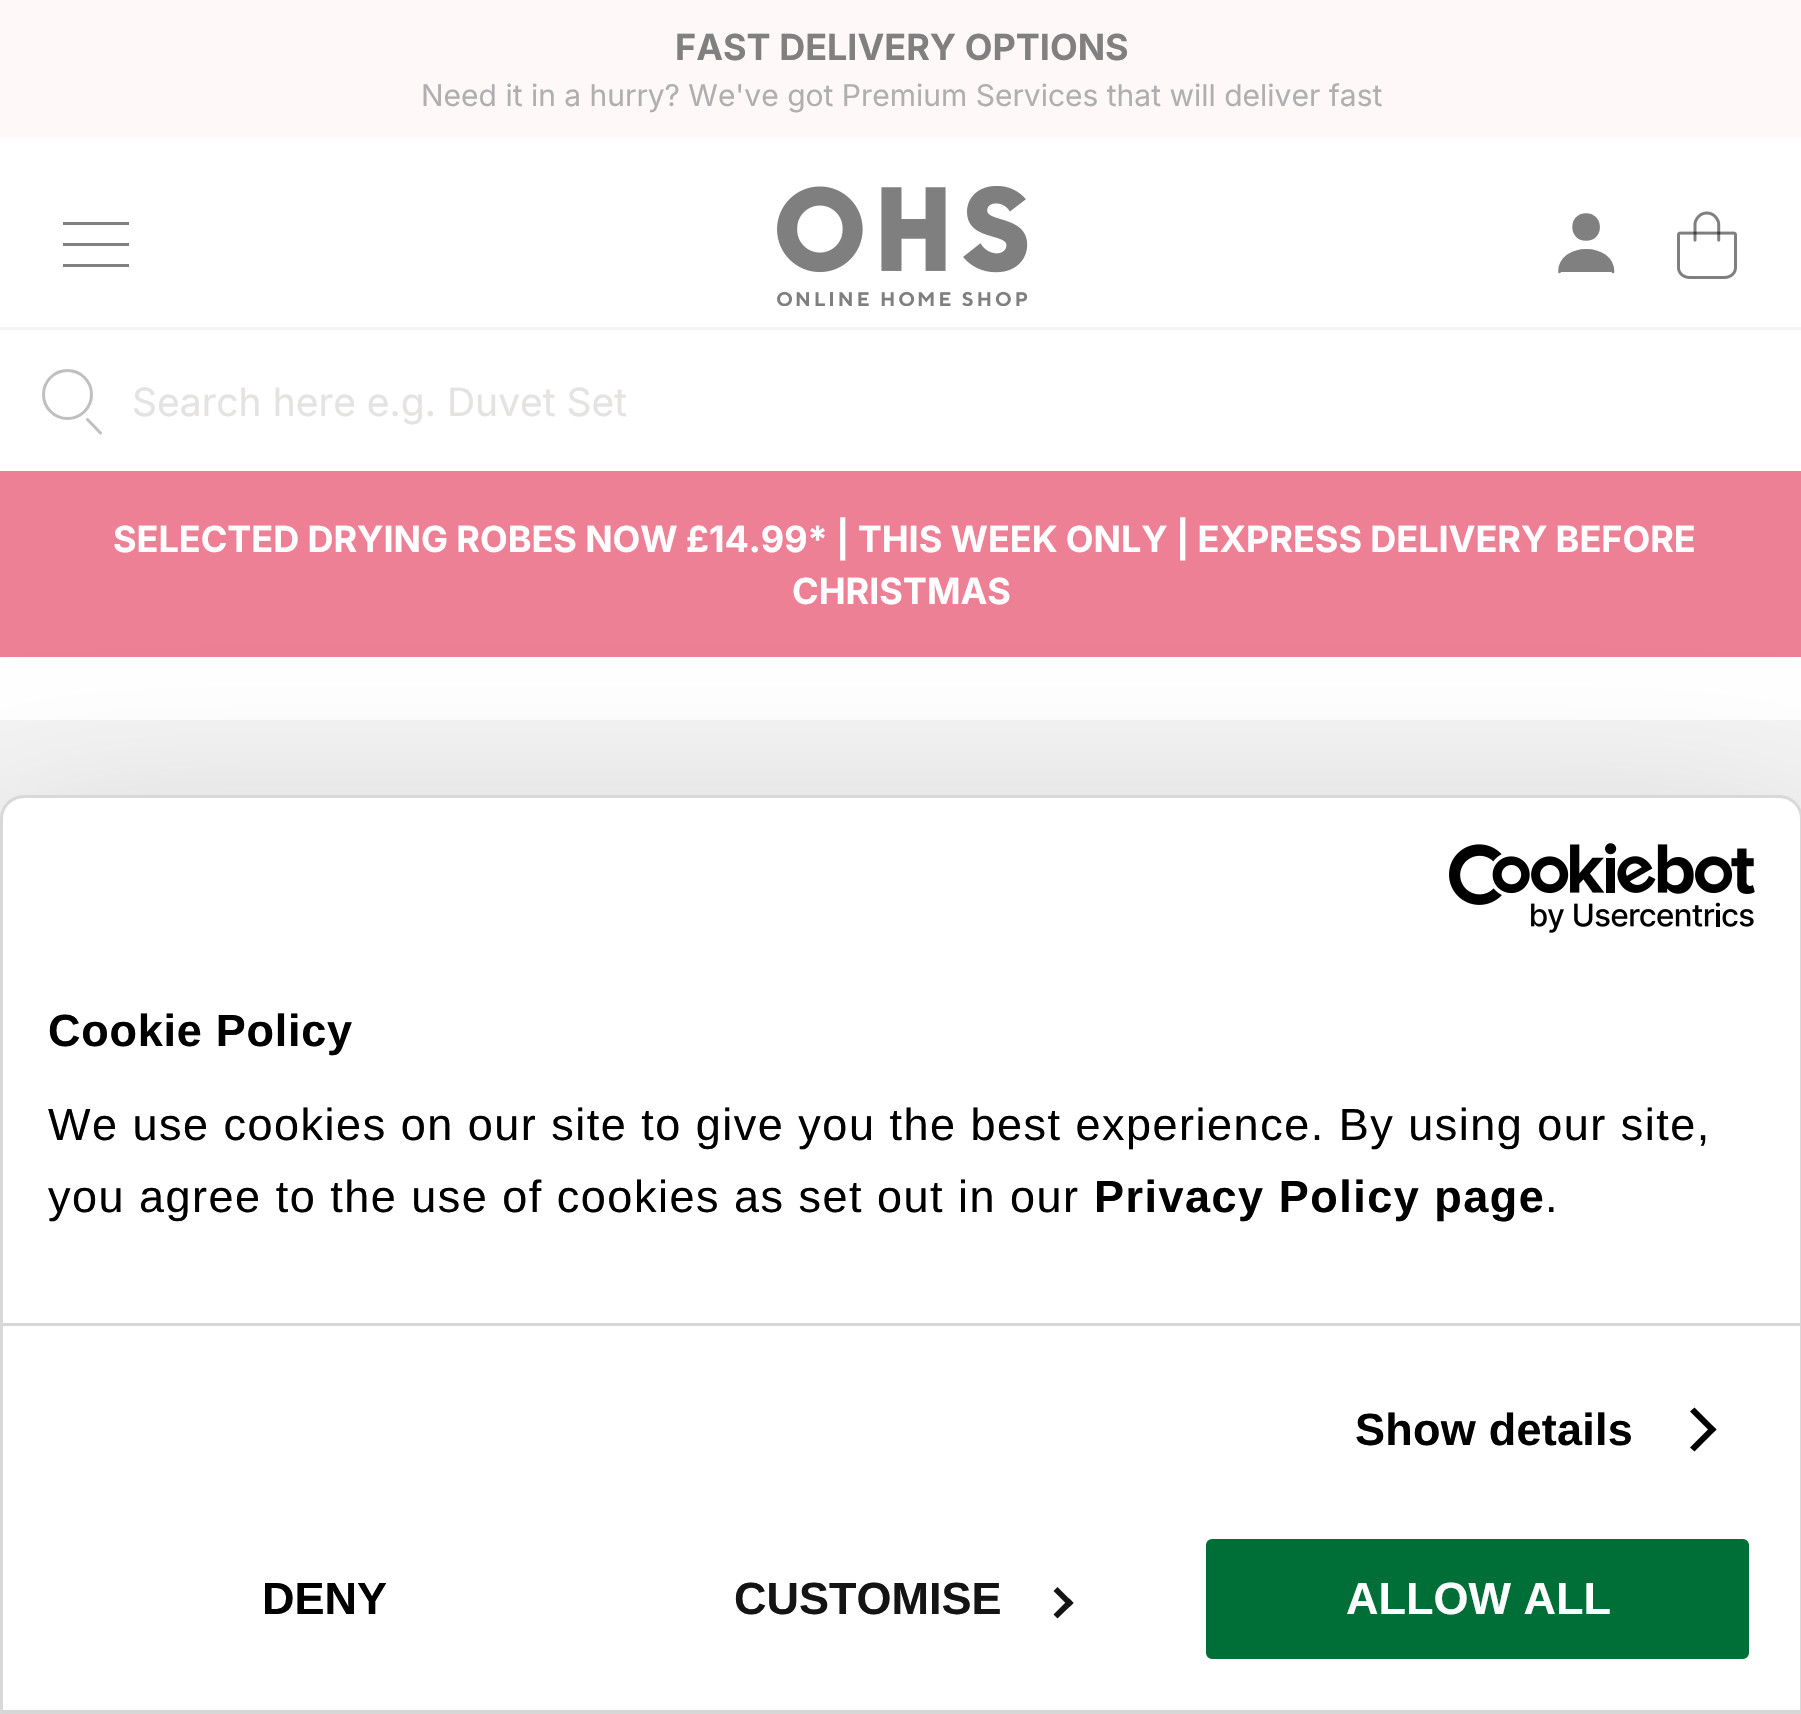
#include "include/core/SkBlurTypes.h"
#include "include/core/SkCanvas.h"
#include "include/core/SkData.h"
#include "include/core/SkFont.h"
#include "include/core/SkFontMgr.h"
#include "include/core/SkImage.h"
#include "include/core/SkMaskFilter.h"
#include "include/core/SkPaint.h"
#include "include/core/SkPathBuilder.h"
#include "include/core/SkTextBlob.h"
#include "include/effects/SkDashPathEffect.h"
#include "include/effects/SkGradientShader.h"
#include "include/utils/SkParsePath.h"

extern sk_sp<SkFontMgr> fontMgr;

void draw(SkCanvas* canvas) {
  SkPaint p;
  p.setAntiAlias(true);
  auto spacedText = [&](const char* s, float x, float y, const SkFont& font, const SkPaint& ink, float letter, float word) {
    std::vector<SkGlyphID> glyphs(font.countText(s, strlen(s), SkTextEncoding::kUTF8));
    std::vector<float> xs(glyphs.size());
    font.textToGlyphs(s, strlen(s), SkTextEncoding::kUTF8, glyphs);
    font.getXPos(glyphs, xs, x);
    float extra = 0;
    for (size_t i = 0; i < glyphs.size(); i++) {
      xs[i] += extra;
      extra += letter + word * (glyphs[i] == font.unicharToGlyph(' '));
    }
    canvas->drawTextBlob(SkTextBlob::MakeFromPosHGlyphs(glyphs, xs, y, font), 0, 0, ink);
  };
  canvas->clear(SK_ColorWHITE);
  p.setColor(SkColorSetRGB(255, 248, 248));
  canvas->drawRect(SkRect::MakeLTRB(0, 0, 1801, 138), p);
  p.setColor(SkColorSetRGB(244, 244, 244));
  canvas->drawRect(SkRect::MakeLTRB(0, 327, 1801, 330), p);
  p.setColor(SkColorSetRGB(128, 128, 128));
  canvas->drawRect(SkRect::MakeLTRB(63, 222, 129, 225), p);
  canvas->drawRect(SkRect::MakeLTRB(63, 264, 129, 267), p);
  canvas->drawRect(SkRect::MakeLTRB(63, 243, 129, 246), p);
  canvas->drawImageRect(SkImages::DeferredFromEncodedData(SkData::MakeFromFileName("images/1.png")), SkRect::MakeLTRB(777, 186, 1028, 306), SkSamplingOptions());
  canvas->drawPath(SkPathBuilder().moveTo(1586, 240).cubicTo(1569, 240, 1569, 214, 1586, 214).cubicTo(1603, 214, 1603, 239, 1586, 240).close().moveTo(1560, 272).cubicTo(1560, 243, 1613, 243, 1613, 272).detach(), p);
  p.setStyle(SkPaint::kStroke_Style);
  p.setStrokeWidth(2.7f);
  p.setStrokeCap(SkPaint::kRound_Cap);
  p.setStrokeJoin(SkPaint::kRound_Join);
  canvas->drawPath(SkPathBuilder().moveTo(1586, 239.5f).cubicTo(1569.5f, 239.5f, 1569.5f, 214.5f, 1586, 214.5f).cubicTo(1602.5f, 214.5f, 1603, 239.5f, 1586, 239.5f).close().moveTo(1559.5f, 272).cubicTo(1559.5f, 243, 1613, 243, 1613, 272).detach(), p);
  canvas->drawImageRect(SkImages::DeferredFromEncodedData(SkData::MakeFromFileName("images/2.png")), SkRect::MakeLTRB(1677, 211, 1737, 279), SkSamplingOptions());
  p.setStrokeWidth(3);
  p.setStrokeCap(SkPaint::kButt_Cap);
  p.setStrokeJoin(SkPaint::kMiter_Join);
  p.setColor(SkColorSetRGB(191, 191, 191));
  canvas->drawCircle(67.5f, 394.5f, 24, p);
  p.setStrokeCap(SkPaint::kRound_Cap);
  canvas->drawPath(SkPathBuilder().moveTo(87.5f, 419.5f).lineTo(100.5f, 433).detach(), p);
  p.setStyle(SkPaint::kFill_Style);
  p.setColor(SkColorSetRGB(237, 128, 149));
  canvas->drawRect(SkRect::MakeLTRB(0, 471, 1801, 657), p);
  p.setColor(SkColorSetRGB(244, 244, 244));
  canvas->drawRect(SkRect::MakeLTRB(0, 720, 1801, 819), p);
  p.setColor(SkColorSetARGB(77, 0, 0, 0));
  p.setMaskFilter(SkMaskFilter::MakeBlur(kNormal_SkBlurStyle, 102));
  canvas->drawRoundRect(SkRect::MakeLTRB(0, 891, 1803, 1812), 24, 24, p);
  p.setMaskFilter(nullptr);
  p.setColor(SK_ColorWHITE);
  canvas->drawPath(SkPathBuilder().moveTo(24, 796.5f).lineTo(1779, 796.5f).cubicTo(1791.5f, 796.5f, 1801.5f, 806.5f, 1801.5f, 819).lineTo(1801.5f, 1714.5f).lineTo(1.5f, 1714.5f).lineTo(1.5f, 819).cubicTo(1.5f, 806.5f, 11.5f, 796.5f, 24, 796.5f).close().detach(), p);
  p.setStyle(SkPaint::kStroke_Style);
  p.setStrokeCap(SkPaint::kButt_Cap);
  p.setColor(SkColorSetRGB(216, 216, 216));
  canvas->drawPath(SkPathBuilder().moveTo(24, 796.5f).lineTo(1779, 796.5f).cubicTo(1791.5f, 796.5f, 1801.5f, 806.5f, 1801.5f, 819).lineTo(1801.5f, 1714.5f).lineTo(1.5f, 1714.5f).lineTo(1.5f, 819).cubicTo(1.5f, 806.5f, 11.5f, 796.5f, 24, 796.5f).close().detach(), p);
  canvas->drawImageRect(SkImages::DeferredFromEncodedData(SkData::MakeFromFileName("images/3.png")), SkRect::MakeLTRB(1449, 843, 1755, 933), SkSamplingOptions());
  p.setStyle(SkPaint::kFill_Style);
  p.setColor(SkColorSetRGB(214, 214, 214));
  canvas->drawRect(SkRect::MakeLTRB(3, 1323, 1800, 1326), p);
  p.setColor(SK_ColorBLACK);
  canvas->drawPath(SkPathBuilder().moveTo(1694.5f, 1407.5f).lineTo(1716.5f, 1429.5f).lineTo(1712, 1433.5f).lineTo(1690, 1411.5f).close().detach(), p);
  canvas->drawPath(SkPathBuilder().moveTo(1712, 1425.5f).lineTo(1716.5f, 1429.5f).lineTo(1694.5f, 1451.5f).lineTo(1690, 1447.5f).close().detach(), p);
  p.setColor(SkColorSetRGB(214, 214, 214));
  canvas->drawRect(SkRect::MakeLTRB(3, 1710, 1800, 1713), p);
  p.setColor(SkColorSetRGB(20, 20, 20));
  canvas->drawPath(SkPathBuilder().moveTo(1057.5f, 1587).lineTo(1073.5f, 1603).lineTo(1069.5f, 1607).lineTo(1053.5f, 1591).close().detach(), p);
  canvas->drawPath(SkPathBuilder().moveTo(1069.5f, 1598.5f).lineTo(1073.5f, 1603).lineTo(1057.5f, 1618.5f).lineTo(1053.5f, 1614.5f).close().detach(), p);
  p.setColor(SkColorSetRGB(0, 110, 55));
  canvas->drawRoundRect(SkRect::MakeLTRB(1203, 1536, 1752, 1662), 9, 9, p);
  p.setStyle(SkPaint::kStroke_Style);
  p.setStrokeWidth(6);
  p.setColor(SK_ColorWHITE);
  canvas->drawRoundRect(SkRect::MakeLTRB(1203, 1536, 1752, 1662), 9, 9, p);
  SkFont font1(fontMgr->matchFamilyStyle("Inter", SkFontStyle::Bold()), 36);
  font1.setSubpixel(true);
  p.setStyle(SkPaint::kFill_Style);
  p.setColor(SkColorSetRGB(128, 128, 128));
  canvas->drawString("FAST DELIVERY OPTIONS", 675, 60, font1, p);
  SkFont font2(fontMgr->matchFamilyStyle("Inter", SkFontStyle::Normal()), 30);
  font2.setSubpixel(true);
  p.setColor(SkColorSetRGB(175, 175, 175));
  canvas->drawString("Need it in a hurry? We've got Premium Services that will deliver fast", 421, 106, font2, p);
  SkFont font3(fontMgr->matchFamilyStyle("Inter", SkFontStyle::Normal()), 39);
  font3.setSubpixel(true);
  p.setColor(SkColorSetRGB(228, 227, 226));
  canvas->drawString("Search here e.g. Duvet Set", 132, 416, font3, p);
  p.setColor(SK_ColorWHITE);
  spacedText("SELECTED DRYING ROBES NOW £14.99* | THIS WEEK ONLY | EXPRESS DELIVERY BEFORE", 113, 552, font1, p, 0, -0.25f);
  canvas->drawString("CHRISTMAS", 792, 604, font1, p);
  SkFont font4(fontMgr->matchFamilyStyle("Liberation Sans", SkFontStyle::Bold()), 45);
  font4.setSubpixel(true);
  p.setColor(SK_ColorBLACK);
  spacedText("Cookie Policy", 48, 1046, font4, p, 0.75f, 0);
  SkFont font5(fontMgr->matchFamilyStyle("Liberation Sans", SkFontStyle::Normal()), 45);
  font5.setSubpixel(true);
  spacedText("We use cookies on our site to give you the best experience. By using our site,", 48, 1140, font5, p, 1.5f, 0);
  spacedText("you agree to the use of cookies as set out in our", 48, 1212, font5, p, 1.5f, 0);
  spacedText("Privacy Policy page", 1094, 1212, font4, p, 1.5f, 0);
  spacedText(".", 1545, 1212, font5, p, 1.5f, 0);
  spacedText("Show details", 1355, 1445, font4, p, 0.25f, 0);
  canvas->drawString("DENY", 262, 1614, font4, p);
  p.setColor(SkColorSetRGB(20, 20, 20));
  canvas->drawString("CUSTOMISE", 734, 1614, font4, p);
  p.setColor(SK_ColorWHITE);
  canvas->drawString("ALLOW ALL", 1346, 1614, font4, p);
}
